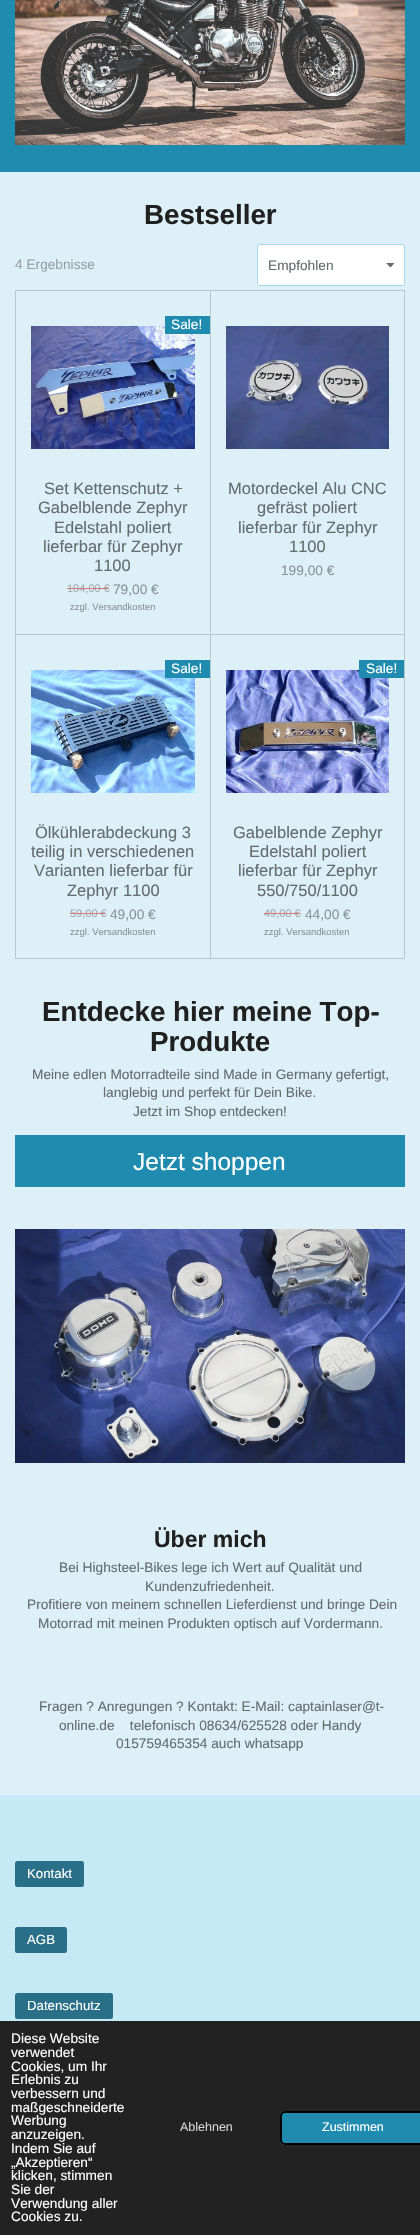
#include "include/core/SkBlurTypes.h"
#include "include/core/SkCanvas.h"
#include "include/core/SkData.h"
#include "include/core/SkFont.h"
#include "include/core/SkFontMgr.h"
#include "include/core/SkImage.h"
#include "include/core/SkMaskFilter.h"
#include "include/core/SkPaint.h"
#include "include/core/SkPathBuilder.h"
#include "include/core/SkTextBlob.h"
#include "include/effects/SkDashPathEffect.h"
#include "include/effects/SkGradientShader.h"
#include "include/utils/SkParsePath.h"

extern sk_sp<SkFontMgr> fontMgr;

void draw(SkCanvas* canvas) {
  SkPaint p;
  p.setAntiAlias(true);
  canvas->clear(SkColorSetRGB(221, 240, 247));
  p.setColor(SkColorSetRGB(30, 139, 175));
  canvas->drawRect(SkRect::MakeLTRB(0, 0, 420, 172), p);
  canvas->drawImageRect(SkImages::DeferredFromEncodedData(SkData::MakeFromFileName("images/1.png")), SkRect::MakeLTRB(15, 0, 405, 145), SkSamplingOptions());
  p.setColor(SK_ColorWHITE);
  canvas->drawRoundRect(SkRect::MakeLTRB(257, 244, 405, 286), 2, 2, p);
  p.setColor(SkColorSetRGB(99, 108, 111));
  canvas->drawPath(SkPathBuilder().moveTo(390.5f, 267.5f).lineTo(386, 263).lineTo(394.5f, 263).close().detach(), p);
  p.setStyle(SkPaint::kStroke_Style);
  p.setStrokeWidth(1);
  p.setColor(SkColorSetARGB(128, 77, 176, 213));
  canvas->drawRoundRect(SkRect::MakeLTRB(257.5f, 244.5f, 404.5f, 285.5f), 1.5f, 1.5f, p);
  p.setColor(SkColorSetRGB(184, 200, 206));
  canvas->drawRect(SkRect::MakeLTRB(15.5f, 290.5f, 210.5f, 634.5f), p);
  canvas->drawImageRect(SkImages::DeferredFromEncodedData(SkData::MakeFromFileName("images/2.png")), SkRect::MakeLTRB(31, 326, 195, 449), SkSamplingOptions());
  p.setStyle(SkPaint::kFill_Style);
  p.setColor(SkColorSetRGB(30, 139, 175));
  canvas->drawRect(SkRect::MakeLTRB(165, 316, 210, 334), p);
  p.setStyle(SkPaint::kStroke_Style);
  p.setColor(SkColorSetRGB(184, 200, 206));
  canvas->drawRect(SkRect::MakeLTRB(210.5f, 290.5f, 404.5f, 634.5f), p);
  canvas->drawImageRect(SkImages::DeferredFromEncodedData(SkData::MakeFromFileName("images/3.png")), SkRect::MakeLTRB(226, 326, 389, 449), SkSamplingOptions());
  canvas->drawRect(SkRect::MakeLTRB(15.5f, 634.5f, 210.5f, 958.5f), p);
  canvas->drawImageRect(SkImages::DeferredFromEncodedData(SkData::MakeFromFileName("images/4.png")), SkRect::MakeLTRB(31, 670, 195, 793), SkSamplingOptions());
  p.setStyle(SkPaint::kFill_Style);
  p.setColor(SkColorSetRGB(30, 139, 175));
  canvas->drawRect(SkRect::MakeLTRB(165, 660, 210, 678), p);
  p.setStyle(SkPaint::kStroke_Style);
  p.setColor(SkColorSetRGB(184, 200, 206));
  canvas->drawRect(SkRect::MakeLTRB(210.5f, 634.5f, 404.5f, 958.5f), p);
  canvas->drawImageRect(SkImages::DeferredFromEncodedData(SkData::MakeFromFileName("images/5.png")), SkRect::MakeLTRB(226, 670, 389, 793), SkSamplingOptions());
  p.setStyle(SkPaint::kFill_Style);
  p.setColor(SkColorSetRGB(30, 139, 175));
  canvas->drawRect(SkRect::MakeLTRB(359, 660, 404, 678), p);
  canvas->drawRect(SkRect::MakeLTRB(15, 1135, 405, 1187), p);
  canvas->drawImageRect(SkImages::DeferredFromEncodedData(SkData::MakeFromFileName("images/6.png")), SkRect::MakeLTRB(15, 1229, 405, 1463), SkSamplingOptions());
  p.setColor(SkColorSetRGB(197, 234, 246));
  canvas->drawRect(SkRect::MakeLTRB(0, 1795, 420, 2021), p);
  p.setColor(SkColorSetRGB(41, 111, 135));
  canvas->drawRoundRect(SkRect::MakeLTRB(15, 1861, 84, 1887), 2.5f, 2.5f, p);
  canvas->drawRoundRect(SkRect::MakeLTRB(15, 1927, 67, 1953), 2.5f, 2.5f, p);
  canvas->drawRoundRect(SkRect::MakeLTRB(15, 1993, 113, 2019), 2.5f, 2.5f, p);
  p.setColor(SkColorSetRGB(34, 34, 34));
  canvas->drawRect(SkRect::MakeLTRB(0, 2021, 420, 2235), p);
  p.setColor(SkColorSetRGB(30, 139, 175));
  canvas->drawPath(SkPathBuilder().moveTo(285, 2111).lineTo(420, 2111).lineTo(420, 2145).lineTo(285, 2145).cubicTo(282, 2145, 280, 2143, 280, 2140).lineTo(280, 2116).cubicTo(280, 2113, 282, 2111, 285, 2111).close().detach(), p);
  p.setStyle(SkPaint::kStroke_Style);
  p.setStrokeWidth(2);
  p.setColor(SK_ColorBLACK);
  canvas->drawRoundRect(SkRect::MakeLTRB(281, 2112, 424, 2144), 4, 4, p);
  SkFont font1(fontMgr->matchFamilyStyle("Liberation Sans", SkFontStyle::Bold()), 27.75f);
  font1.setSubpixel(true);
  p.setStyle(SkPaint::kFill_Style);
  p.setColor(SkColorSetRGB(32, 32, 32));
  canvas->drawString("Bestseller", 144, 224, font1, p);
  SkFont font2(fontMgr->matchFamilyStyle("Liberation Sans", SkFontStyle::Normal()), 13.7f);
  font2.setSubpixel(true);
  p.setColor(SkColorSetRGB(148, 161, 165));
  canvas->drawString("4 Ergebnisse", 15, 269, font2, p);
  p.setColor(SkColorSetRGB(99, 108, 111));
  canvas->drawString("Empfohlen", 268, 270, font2, p);
  p.setColor(SK_ColorWHITE);
  canvas->drawString("Sale!", 171, 329, font2, p);
  SkFont font3(fontMgr->matchFamilyStyle("Liberation Sans", SkFontStyle::Normal()), 16.5f);
  font3.setSubpixel(true);
  p.setColor(SkColorSetRGB(99, 108, 111));
  canvas->drawString("Set Kettenschutz +", 44, 494, font3, p);
  canvas->drawString("Gabelblende Zephyr", 38, 513, font3, p);
  canvas->drawString("Edelstahl poliert", 54, 533, font3, p);
  canvas->drawString("lieferbar für Zephyr", 43, 552, font3, p);
  canvas->drawString("1100", 94, 571, font3, p);
  SkFont font4(fontMgr->matchFamilyStyle("Liberation Sans", SkFontStyle::Normal()), 11);
  font4.setSubpixel(true);
  p.setColor(SkColorSetRGB(157, 171, 176));
  canvas->drawString("104,00 €", 67, 592, font4, p);
  p.setColor(SkColorSetRGB(218, 122, 121));
  canvas->drawRect(SkRect::MakeLTRB(67, 588, 109, 589), p);
  p.setColor(SkColorSetRGB(136, 148, 152));
  canvas->drawString("79,00 €", 113, 594, font2, p);
  SkFont font5(fontMgr->matchFamilyStyle("Liberation Sans", SkFontStyle::Normal()), 9.5f);
  font5.setSubpixel(true);
  canvas->drawString("zzgl. Versandkosten", 70, 610, font5, p);
  p.setColor(SkColorSetRGB(99, 108, 111));
  canvas->drawString("Motordeckel Alu CNC", 228, 494, font3, p);
  canvas->drawString("gefräst poliert", 257, 513, font3, p);
  canvas->drawString("lieferbar für Zephyr", 238, 533, font3, p);
  canvas->drawString("1100", 289, 552, font3, p);
  p.setColor(SkColorSetRGB(136, 148, 152));
  canvas->drawString("199,00 €", 281, 575, font2, p);
  p.setColor(SK_ColorWHITE);
  canvas->drawString("Sale!", 171, 673, font2, p);
  p.setColor(SkColorSetRGB(99, 108, 111));
  canvas->drawString("Ölkühlerabdeckung 3", 35, 838, font3, p);
  canvas->drawString("teilig in verschiedenen", 31, 857, font3, p);
  canvas->drawString("Varianten lieferbar für", 34, 876, font3, p);
  canvas->drawString("Zephyr 1100", 67, 896, font3, p);
  p.setColor(SkColorSetRGB(157, 171, 176));
  canvas->drawString("59,00 €", 70, 917, font4, p);
  p.setColor(SkColorSetRGB(218, 122, 121));
  canvas->drawRect(SkRect::MakeLTRB(70, 913, 106, 914), p);
  p.setColor(SkColorSetRGB(136, 148, 152));
  canvas->drawString("49,00 €", 110, 919, font2, p);
  canvas->drawString("zzgl. Versandkosten", 70, 935, font5, p);
  p.setColor(SK_ColorWHITE);
  canvas->drawString("Sale!", 366, 673, font2, p);
  p.setColor(SkColorSetRGB(99, 108, 111));
  canvas->drawString("Gabelblende Zephyr", 233, 838, font3, p);
  canvas->drawString("Edelstahl poliert", 249, 857, font3, p);
  canvas->drawString("lieferbar für Zephyr", 238, 876, font3, p);
  canvas->drawString("550/750/1100", 257, 896, font3, p);
  p.setColor(SkColorSetRGB(157, 171, 176));
  canvas->drawString("49,00 €", 264, 917, font4, p);
  p.setColor(SkColorSetRGB(218, 122, 121));
  canvas->drawRect(SkRect::MakeLTRB(264, 913, 301, 914), p);
  p.setColor(SkColorSetRGB(136, 148, 152));
  canvas->drawString("44,00 €", 305, 919, font2, p);
  canvas->drawString("zzgl. Versandkosten", 264, 935, font5, p);
  p.setColor(SkColorSetRGB(32, 32, 32));
  canvas->drawString("Entdecke hier meine Top-", 42, 1021, font1, p);
  canvas->drawString("Produkte", 150, 1051, font1, p);
  p.setColor(SkColorSetRGB(99, 108, 111));
  canvas->drawString("Meine edlen Motorradteile sind Made in Germany gefertigt,", 32, 1079, font2, p);
  canvas->drawString("langlebig und perfekt für Dein Bike.", 103, 1097, font2, p);
  canvas->drawString("Jetzt im Shop entdecken!", 133, 1116, font2, p);
  SkFont font6(fontMgr->matchFamilyStyle("Liberation Sans", SkFontStyle::Normal()), 24.5f);
  font6.setSubpixel(true);
  p.setColor(SK_ColorWHITE);
  canvas->drawString("Jetzt shoppen", 133, 1170, font6, p);
  SkFont font7(fontMgr->matchFamilyStyle("Liberation Sans", SkFontStyle::Bold()), 23);
  font7.setSubpixel(true);
  p.setColor(SkColorSetRGB(32, 32, 32));
  canvas->drawString("Über mich", 154, 1547, font7, p);
  p.setColor(SkColorSetRGB(99, 108, 111));
  canvas->drawString("Bei Highsteel-Bikes lege ich Wert auf Qualität und", 59, 1572, font2, p);
  canvas->drawString("Kundenzufriedenheit.", 145, 1591, font2, p);
  canvas->drawString("Profitiere von meinem schnellen Lieferdienst und bringe Dein", 27, 1609, font2, p);
  canvas->drawString("Motorrad mit meinen Produkten optisch auf Vordermann.", 38, 1628, font2, p);
  canvas->drawString("Fragen ? Anregungen ? Kontakt: E-Mail: captainlaser@t-", 39, 1711, font2, p);
  canvas->drawString("online.de    telefonisch 08634/625528 oder Handy", 59, 1730, font2, p);
  canvas->drawString("015759465354 auch whatsapp", 116, 1748, font2, p);
  SkFont font8(fontMgr->matchFamilyStyle("Liberation Sans", SkFontStyle::Normal()), 13.25f);
  font8.setSubpixel(true);
  p.setColor(SK_ColorWHITE);
  canvas->drawString("Kontakt", 27, 1878, font8, p);
  canvas->drawString("AGB", 27, 1944, font8, p);
  canvas->drawString("Datenschutz", 27, 2010, font8, p);
  canvas->drawString("Diese Website", 11, 2043, font2, p);
  canvas->drawString("verwendet", 11, 2057, font2, p);
  canvas->drawString("Cookies, um Ihr", 11, 2071, font2, p);
  canvas->drawString("Erlebnis zu", 11, 2084, font2, p);
  canvas->drawString("verbessern und", 11, 2098, font2, p);
  canvas->drawString("maßgeschneiderte", 11, 2112, font2, p);
  canvas->drawString("Werbung", 11, 2125, font2, p);
  canvas->drawString("anzuzeigen.", 11, 2139, font2, p);
  canvas->drawString("Indem Sie auf", 11, 2153, font2, p);
  canvas->drawString("„Akzeptieren“", 11, 2167, font2, p);
  canvas->drawString("klicken, stimmen", 11, 2180, font2, p);
  canvas->drawString("Sie der", 11, 2194, font2, p);
  canvas->drawString("Verwendung aller", 11, 2208, font2, p);
  canvas->drawString("Cookies zu.", 11, 2221, font2, p);
  SkFont font9(fontMgr->matchFamilyStyle("Liberation Sans", SkFontStyle::Normal()), 12.5f);
  font9.setSubpixel(true);
  p.setColor(SkColorSetRGB(211, 211, 211));
  canvas->drawString("Ablehnen", 180, 2131, font9, p);
  p.setColor(SK_ColorWHITE);
  canvas->drawString("Zustimmen", 322, 2131, font9, p);
}
